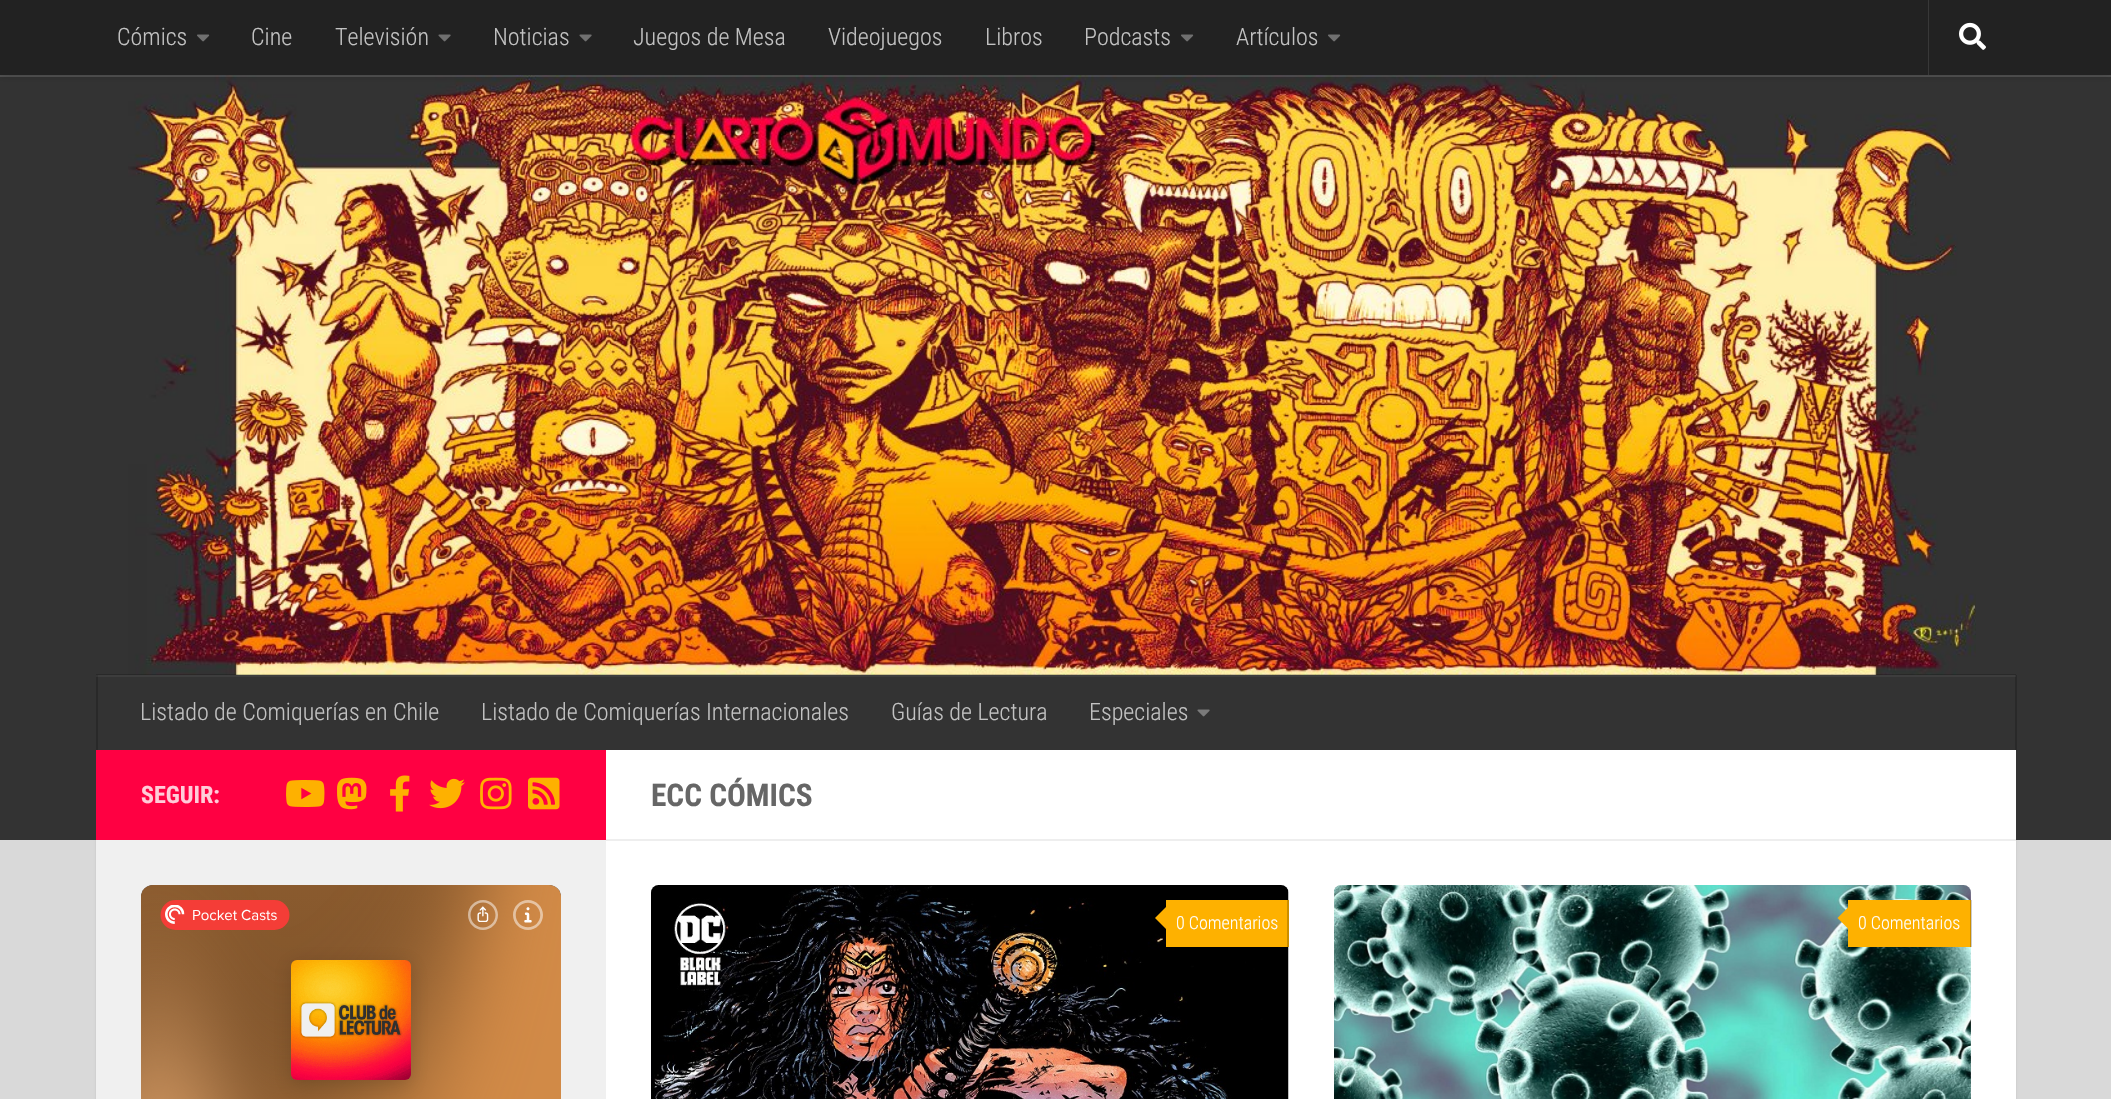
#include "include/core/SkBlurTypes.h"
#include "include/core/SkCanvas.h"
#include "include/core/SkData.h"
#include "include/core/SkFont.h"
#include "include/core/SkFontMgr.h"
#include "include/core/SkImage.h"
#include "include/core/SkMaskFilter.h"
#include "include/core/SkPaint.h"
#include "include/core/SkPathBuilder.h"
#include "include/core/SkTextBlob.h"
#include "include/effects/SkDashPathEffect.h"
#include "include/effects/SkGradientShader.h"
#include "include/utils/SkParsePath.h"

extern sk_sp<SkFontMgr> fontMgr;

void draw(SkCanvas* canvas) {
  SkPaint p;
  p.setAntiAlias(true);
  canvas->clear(SkColorSetRGB(217, 217, 217));
  p.setColor(SkColorSetARGB(26, 0, 0, 0));
  p.setMaskFilter(SkMaskFilter::MakeBlur(kNormal_SkBlurStyle, 1));
  canvas->drawRect(SkRect::MakeLTRB(96, 752, 2016, 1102), p);
  p.setMaskFilter(nullptr);
  p.setColor(SkColorSetRGB(51, 51, 51));
  canvas->drawRect(SkRect::MakeLTRB(0, 75, 2111, 840), p);
  p.setColor(SkColorSetRGB(61, 61, 61));
  canvas->drawRect(SkRect::MakeLTRB(96, 675, 2016, 677), p);
  canvas->drawImageRect(SkImages::DeferredFromEncodedData(SkData::MakeFromFileName("images/4.png")), SkRect::MakeLTRB(128, 75, 1976, 675), SkSamplingOptions());
  p.setColor(SkColorSetARGB(38, 255, 255, 255));
  canvas->drawRect(SkRect::MakeLTRB(0, 75, 2111, 77), p);
  p.setColor(SkColorSetARGB(51, 0, 0, 0));
  p.setMaskFilter(SkMaskFilter::MakeBlur(kNormal_SkBlurStyle, 4));
  canvas->drawRect(SkRect::MakeLTRB(0, 0, 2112, 75), p);
  p.setMaskFilter(nullptr);
  p.setColor(SkColorSetRGB(34, 34, 34));
  canvas->drawRect(SkRect::MakeLTRB(0, 0, 2111, 75), p);
  canvas->drawImageRect(SkImages::DeferredFromEncodedData(SkData::MakeFromFileName("images/1.png")), SkRect::MakeLTRB(197, 34, 210, 42), SkSamplingOptions());
  canvas->drawImageRect(SkImages::DeferredFromEncodedData(SkData::MakeFromFileName("images/2.png")), SkRect::MakeLTRB(438, 34, 451, 42), SkSamplingOptions());
  canvas->drawImageRect(SkImages::DeferredFromEncodedData(SkData::MakeFromFileName("images/2.png")), SkRect::MakeLTRB(579, 34, 592, 42), SkSamplingOptions());
  canvas->drawImageRect(SkImages::DeferredFromEncodedData(SkData::MakeFromFileName("images/1.png")), SkRect::MakeLTRB(1181, 34, 1194, 42), SkSamplingOptions());
  canvas->drawImageRect(SkImages::DeferredFromEncodedData(SkData::MakeFromFileName("images/1.png")), SkRect::MakeLTRB(1328, 34, 1341, 42), SkSamplingOptions());
  p.setColor(SkColorSetRGB(56, 56, 56));
  canvas->drawRect(SkRect::MakeLTRB(1928, 0, 1929, 75), p);
  canvas->drawImageRect(SkImages::DeferredFromEncodedData(SkData::MakeFromFileName("images/3.png")), SkRect::MakeLTRB(1959, 22, 1986, 50), SkSamplingOptions());
  p.setColor(SkColorSetARGB(51, 0, 0, 0));
  canvas->drawRect(SkRect::MakeLTRB(96, 674, 2016, 675), p);
  p.setColor(SkColorSetRGB(41, 41, 41));
  canvas->drawRect(SkRect::MakeLTRB(2015, 675, 2017, 750), p);
  p.setColor(SkColorSetRGB(52, 52, 52));
  canvas->drawRect(SkRect::MakeLTRB(2015, 675, 2016, 677), p);
  p.setColor(SkColorSetRGB(41, 41, 41));
  canvas->drawRect(SkRect::MakeLTRB(96, 675, 98, 750), p);
  p.setColor(SkColorSetRGB(52, 52, 52));
  canvas->drawRect(SkRect::MakeLTRB(96, 675, 98, 677), p);
  canvas->drawImageRect(SkImages::DeferredFromEncodedData(SkData::MakeFromFileName("images/5.png")), SkRect::MakeLTRB(1197, 709, 1210, 717), SkSamplingOptions());
  p.setColor(SK_ColorWHITE);
  canvas->drawRect(SkRect::MakeLTRB(606, 750, 2016, 1099), p);
  p.setColor(SkColorSetRGB(255, 0, 66));
  canvas->drawRect(SkRect::MakeLTRB(96, 750, 606, 840), p);
  canvas->drawImageRect(SkImages::DeferredFromEncodedData(SkData::MakeFromFileName("images/6.png")), SkRect::MakeLTRB(286, 780, 325, 807), SkSamplingOptions());
  canvas->drawImageRect(SkImages::DeferredFromEncodedData(SkData::MakeFromFileName("images/7.png")), SkRect::MakeLTRB(337, 777, 367, 810), SkSamplingOptions());
  canvas->drawImageRect(SkImages::DeferredFromEncodedData(SkData::MakeFromFileName("images/8.png")), SkRect::MakeLTRB(390, 775, 410, 812), SkSamplingOptions());
  canvas->drawImageRect(SkImages::DeferredFromEncodedData(SkData::MakeFromFileName("images/9.png")), SkRect::MakeLTRB(429, 778, 465, 809), SkSamplingOptions());
  canvas->drawImageRect(SkImages::DeferredFromEncodedData(SkData::MakeFromFileName("images/10.png")), SkRect::MakeLTRB(480, 777, 512, 810), SkSamplingOptions());
  canvas->drawImageRect(SkImages::DeferredFromEncodedData(SkData::MakeFromFileName("images/11.png")), SkRect::MakeLTRB(528, 777, 560, 810), SkSamplingOptions());
  p.setColor(SkColorSetRGB(240, 240, 240));
  canvas->drawRect(SkRect::MakeLTRB(96, 840, 606, 1099), p);
  canvas->drawImageRect(SkImages::DeferredFromEncodedData(SkData::MakeFromFileName("images/12.png")), SkRect::MakeLTRB(141, 885, 561, 1099), SkSamplingOptions());
  p.setColor(SkColorSetRGB(238, 238, 238));
  canvas->drawRect(SkRect::MakeLTRB(606, 839, 2016, 841), p);
  canvas->drawImageRect(SkImages::DeferredFromEncodedData(SkData::MakeFromFileName("images/13.png")), SkRect::MakeLTRB(651, 885, 1289, 1099), SkSamplingOptions());
  p.setColor(SkColorSetRGB(254, 177, 0));
  canvas->drawRect(SkRect::MakeLTRB(1166, 900, 1287, 947), p);
  p.setColor(SkColorSetRGB(203, 142, 0));
  canvas->drawRect(SkRect::MakeLTRB(1287, 900, 1289, 947), p);
  p.setColor(SkColorSetRGB(254, 177, 0));
  canvas->drawPath(SkPathBuilder().moveTo(1168.5f, 904.5f).lineTo(1168.5f, 931.5f).lineTo(1155, 918).close().detach(), p);
  canvas->drawImageRect(SkImages::DeferredFromEncodedData(SkData::MakeFromFileName("images/14.png")), SkRect::MakeLTRB(1334, 885, 1971, 1099), SkSamplingOptions());
  canvas->drawRect(SkRect::MakeLTRB(1848, 900, 1971, 947), p);
  p.setColor(SkColorSetARGB(51, 0, 0, 0));
  canvas->drawRect(SkRect::MakeLTRB(1970, 900, 1972, 947), p);
  p.setColor(SkColorSetRGB(254, 177, 0));
  canvas->drawPath(SkPathBuilder().moveTo(1851, 904.5f).lineTo(1851, 931.5f).lineTo(1837.5f, 918).close().detach(), p);
  SkFont font1(fontMgr->matchFamilyStyle("Roboto Condensed", SkFontStyle(300, SkFontStyle::kNormal_Width, SkFontStyle::kUpright_Slant)), 24);
  font1.setSubpixel(true);
  p.setColor(SkColorSetRGB(194, 194, 194));
  canvas->drawString("Cómics", 117, 45, font1, p);
  canvas->drawString("Cine", 251, 45, font1, p);
  canvas->drawString("Televisión", 335, 45, font1, p);
  canvas->drawString("Noticias", 493, 45, font1, p);
  canvas->drawString("Juegos de Mesa", 633, 45, font1, p);
  canvas->drawString("Videojuegos", 828, 45, font1, p);
  canvas->drawString("Libros", 985, 45, font1, p);
  canvas->drawString("Podcasts", 1084, 45, font1, p);
  canvas->drawString("Artículos", 1236, 45, font1, p);
  canvas->drawString("Listado de Comiquerías en Chile", 140, 720, font1, p);
  canvas->drawString("Listado de Comiquerías Internacionales", 481, 720, font1, p);
  canvas->drawString("Guías de Lectura", 891, 720, font1, p);
  canvas->drawString("Especiales", 1089, 720, font1, p);
  SkFont font2(fontMgr->matchFamilyStyle("Roboto Condensed", SkFontStyle::Bold()), 24);
  font2.setSubpixel(true);
  p.setColor(SkColorSetRGB(255, 204, 217));
  canvas->drawString("SEGUIR:", 141, 803, font2, p);
  SkFont font3(fontMgr->matchFamilyStyle("Roboto Condensed", SkFontStyle::Bold()), 31.25f);
  font3.setSubpixel(true);
  p.setColor(SkColorSetRGB(102, 102, 102));
  canvas->drawString("ECC CÓMICS", 651, 806, font3, p);
  SkFont font4(fontMgr->matchFamilyStyle("Roboto Condensed", SkFontStyle(300, SkFontStyle::kNormal_Width, SkFontStyle::kUpright_Slant)), 18);
  font4.setSubpixel(true);
  p.setColor(SK_ColorWHITE);
  canvas->drawString("0 Comentarios", 1176, 929, font4, p);
  canvas->drawString("0 Comentarios", 1858, 929, font4, p);
}
